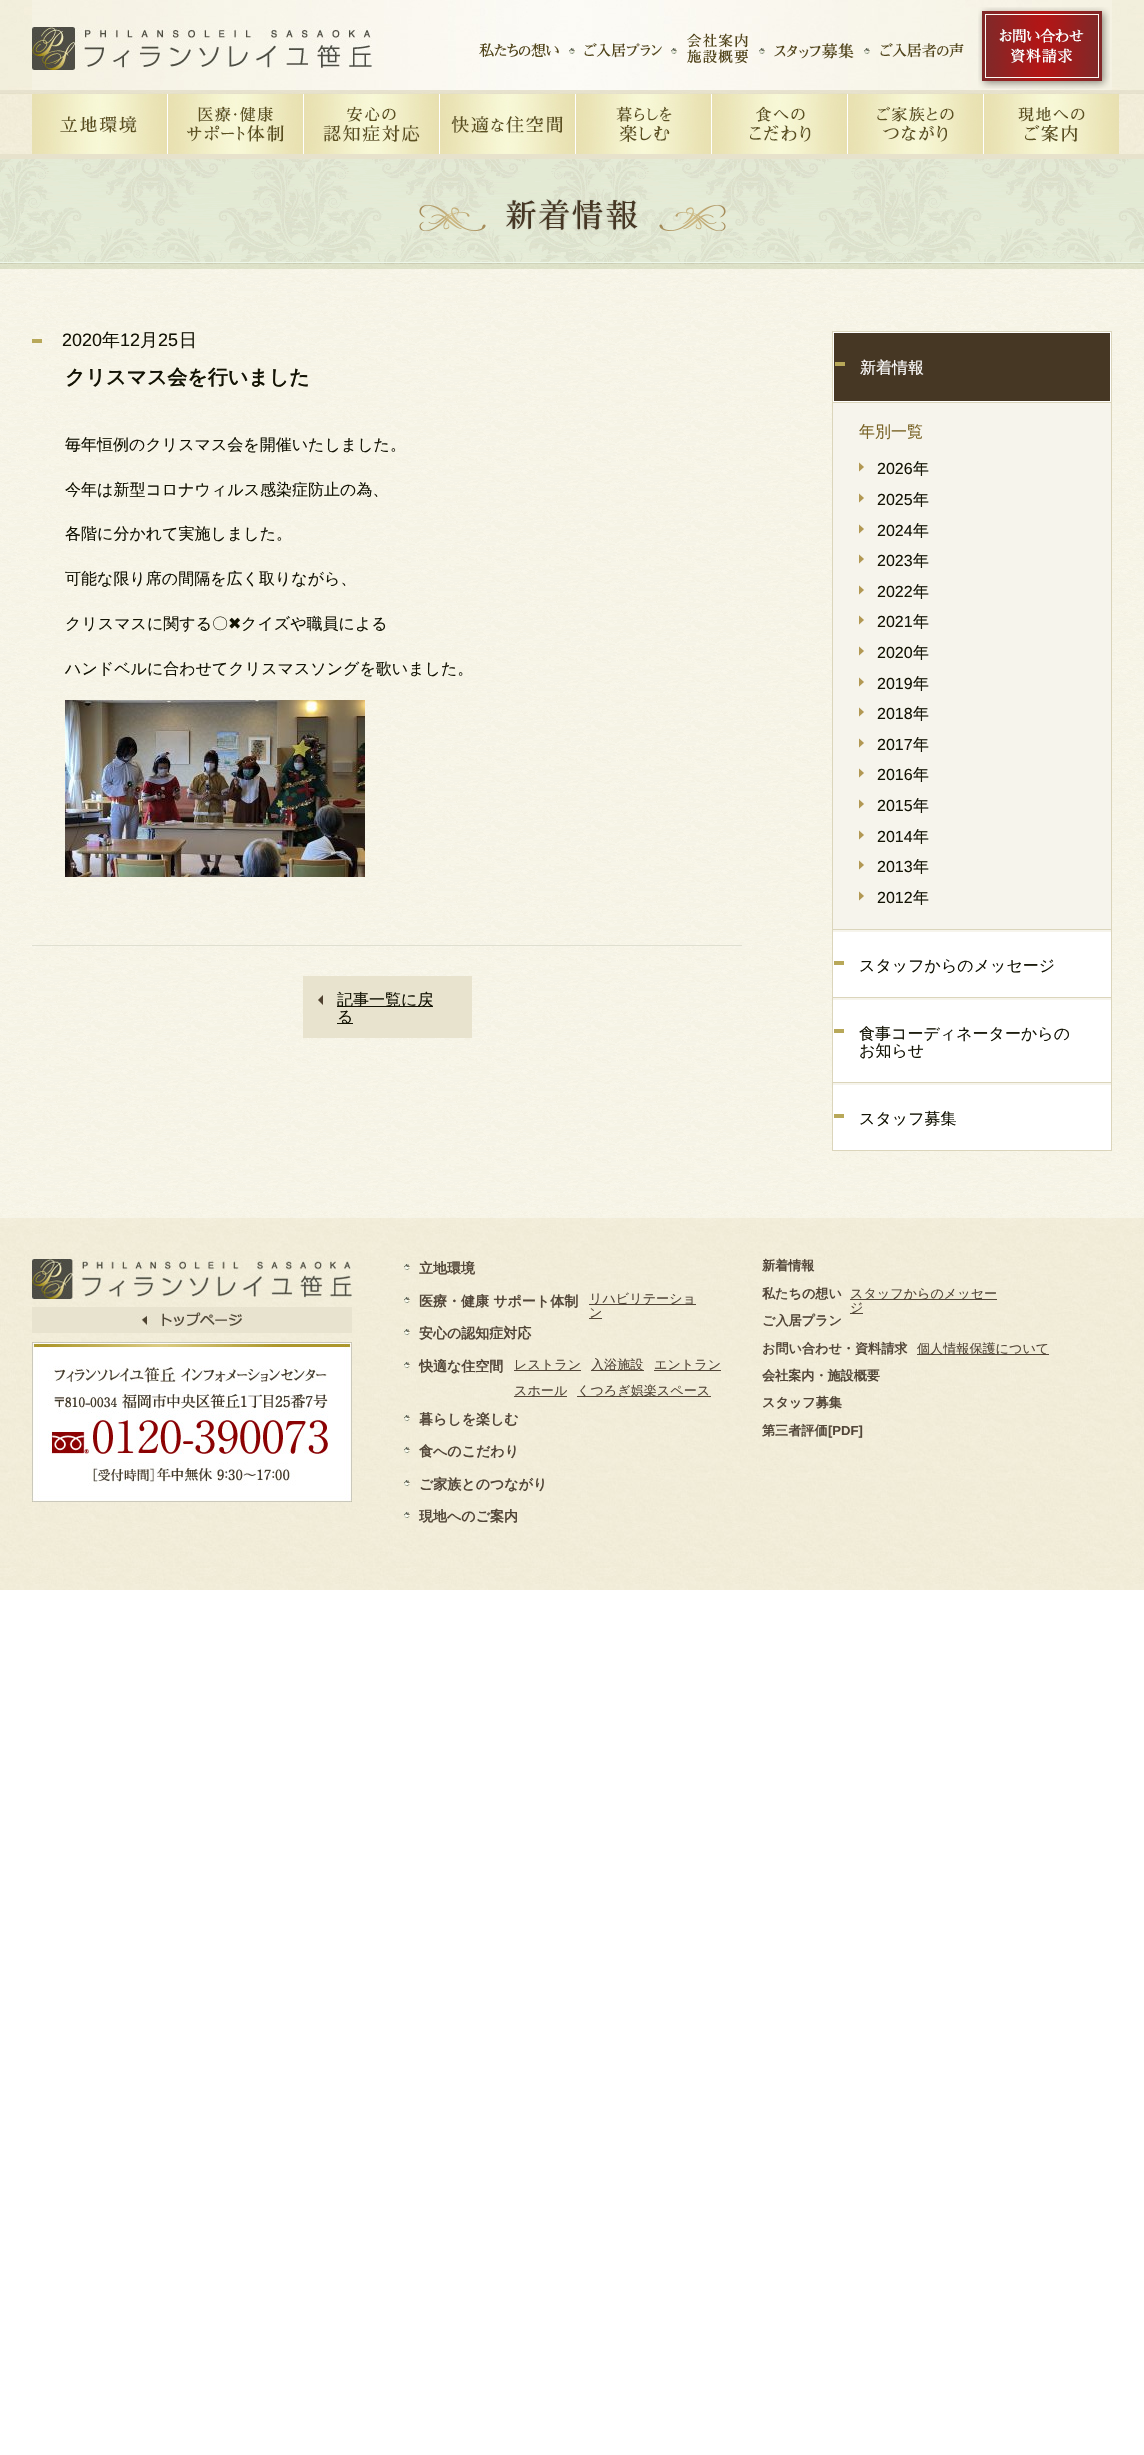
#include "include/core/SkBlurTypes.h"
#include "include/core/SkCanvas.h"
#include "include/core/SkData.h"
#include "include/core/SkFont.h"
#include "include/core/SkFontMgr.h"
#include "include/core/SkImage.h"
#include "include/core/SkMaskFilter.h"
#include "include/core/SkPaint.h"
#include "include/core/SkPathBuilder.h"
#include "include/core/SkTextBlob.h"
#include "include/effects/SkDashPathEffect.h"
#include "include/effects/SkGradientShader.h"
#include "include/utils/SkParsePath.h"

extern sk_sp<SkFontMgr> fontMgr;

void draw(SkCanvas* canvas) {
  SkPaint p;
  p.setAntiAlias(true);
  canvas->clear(SK_ColorWHITE);
  canvas->drawImageRect(SkImages::DeferredFromEncodedData(SkData::MakeFromFileName("images/1.png")), SkRect::MakeLTRB(0, 0, 1144, 154), SkSamplingOptions());
  p.setColor(SkColorSetRGB(231, 226, 204));
  canvas->drawRect(SkRect::MakeLTRB(0, 154, 1144, 159), p);
  canvas->drawImageRect(SkImages::DeferredFromEncodedData(SkData::MakeFromFileName("images/2.png")), SkRect::MakeLTRB(32, 0, 1112, 90), SkSamplingOptions());
  canvas->drawImageRect(SkImages::DeferredFromEncodedData(SkData::MakeFromFileName("images/3.png")), SkRect::MakeLTRB(32, 27, 372, 70), SkSamplingOptions());
  canvas->drawImageRect(SkImages::DeferredFromEncodedData(SkData::MakeFromFileName("images/4.png")), SkRect::MakeLTRB(479, 43, 559, 57), SkSamplingOptions());
  canvas->drawImageRect(SkImages::DeferredFromEncodedData(SkData::MakeFromFileName("images/5.png")), SkRect::MakeLTRB(569, 43, 662, 58), SkSamplingOptions());
  canvas->drawImageRect(SkImages::DeferredFromEncodedData(SkData::MakeFromFileName("images/6.png")), SkRect::MakeLTRB(671, 33, 748, 64), SkSamplingOptions());
  canvas->drawImageRect(SkImages::DeferredFromEncodedData(SkData::MakeFromFileName("images/7.png")), SkRect::MakeLTRB(759, 43, 854, 59), SkSamplingOptions());
  canvas->drawImageRect(SkImages::DeferredFromEncodedData(SkData::MakeFromFileName("images/8.png")), SkRect::MakeLTRB(864, 43, 964, 58), SkSamplingOptions());
  canvas->drawImageRect(SkImages::DeferredFromEncodedData(SkData::MakeFromFileName("images/9.png")), SkRect::MakeLTRB(978, 7, 1110, 89), SkSamplingOptions());
  canvas->drawImageRect(SkImages::DeferredFromEncodedData(SkData::MakeFromFileName("images/10.png")), SkRect::MakeLTRB(32, 94, 168, 154), SkSamplingOptions());
  canvas->drawImageRect(SkImages::DeferredFromEncodedData(SkData::MakeFromFileName("images/11.png")), SkRect::MakeLTRB(168, 94, 304, 154), SkSamplingOptions());
  canvas->drawImageRect(SkImages::DeferredFromEncodedData(SkData::MakeFromFileName("images/12.png")), SkRect::MakeLTRB(304, 94, 440, 154), SkSamplingOptions());
  canvas->drawImageRect(SkImages::DeferredFromEncodedData(SkData::MakeFromFileName("images/13.png")), SkRect::MakeLTRB(440, 94, 576, 154), SkSamplingOptions());
  canvas->drawImageRect(SkImages::DeferredFromEncodedData(SkData::MakeFromFileName("images/14.png")), SkRect::MakeLTRB(576, 94, 712, 154), SkSamplingOptions());
  canvas->drawImageRect(SkImages::DeferredFromEncodedData(SkData::MakeFromFileName("images/15.png")), SkRect::MakeLTRB(712, 94, 848, 154), SkSamplingOptions());
  canvas->drawImageRect(SkImages::DeferredFromEncodedData(SkData::MakeFromFileName("images/16.png")), SkRect::MakeLTRB(848, 94, 984, 154), SkSamplingOptions());
  canvas->drawImageRect(SkImages::DeferredFromEncodedData(SkData::MakeFromFileName("images/17.png")), SkRect::MakeLTRB(984, 94, 1119, 154), SkSamplingOptions());
  canvas->drawImageRect(SkImages::DeferredFromEncodedData(SkData::MakeFromFileName("images/18.png")), SkRect::MakeLTRB(0, 269, 1144, 1218), SkSamplingOptions());
  canvas->drawImageRect(SkImages::DeferredFromEncodedData(SkData::MakeFromFileName("images/19.png")), SkRect::MakeLTRB(0, 159, 1144, 269), SkSamplingOptions());
  canvas->drawImageRect(SkImages::DeferredFromEncodedData(SkData::MakeFromFileName("images/20.png")), SkRect::MakeLTRB(419, 199, 726, 231), SkSamplingOptions());
  p.setColor(SkColorSetRGB(223, 223, 208));
  canvas->drawRect(SkRect::MakeLTRB(32, 945, 742, 946), p);
  p.setColor(SkColorSetRGB(184, 168, 89));
  canvas->drawRect(SkRect::MakeLTRB(32, 339, 42, 343), p);
  canvas->drawImageRect(SkImages::DeferredFromEncodedData(SkData::MakeFromFileName("images/21.png")), SkRect::MakeLTRB(65, 700, 365, 877), SkSamplingOptions());
  p.setColor(SkColorSetRGB(232, 227, 206));
  canvas->drawRect(SkRect::MakeLTRB(303, 976, 472, 1038), p);
  canvas->drawImageRect(SkImages::DeferredFromEncodedData(SkData::MakeFromFileName("images/22.png")), SkRect::MakeLTRB(318, 995, 323, 1005), SkSamplingOptions());
  p.setColor(SkColorSetRGB(19, 19, 4));
  canvas->drawRect(SkRect::MakeLTRB(337, 1006, 433, 1007), p);
  canvas->drawRect(SkRect::MakeLTRB(337, 1023, 353, 1024), p);
  p.setColor(SkColorSetRGB(219, 213, 187));
  canvas->drawRect(SkRect::MakeLTRB(832, 331, 1112, 332), p);
  canvas->drawRect(SkRect::MakeLTRB(1111, 331, 1112, 1151), p);
  canvas->drawRect(SkRect::MakeLTRB(832, 331, 833, 1151), p);
  canvas->drawRect(SkRect::MakeLTRB(833, 929, 1111, 930), p);
  p.setColor(SkColorSetRGB(70, 55, 36));
  canvas->drawRect(SkRect::MakeLTRB(834, 333, 1110, 401), p);
  p.setColor(SkColorSetRGB(184, 168, 89));
  canvas->drawRect(SkRect::MakeLTRB(835, 362, 845, 366), p);
  p.setStyle(SkPaint::kStroke_Style);
  p.setStrokeWidth(1);
  p.setColor(SK_ColorWHITE);
  canvas->drawRect(SkRect::MakeLTRB(833.5f, 332.5f, 1110.5f, 401.5f), p);
  p.setStyle(SkPaint::kFill_Style);
  p.setColor(SkColorSetRGB(246, 244, 236));
  canvas->drawRect(SkRect::MakeLTRB(833, 403, 1111, 929), p);
  p.setColor(SkColorSetRGB(219, 213, 187));
  canvas->drawRect(SkRect::MakeLTRB(833, 402, 1111, 403), p);
  canvas->drawImageRect(SkImages::DeferredFromEncodedData(SkData::MakeFromFileName("images/23.png")), SkRect::MakeLTRB(859, 462, 864, 472), SkSamplingOptions());
  canvas->drawImageRect(SkImages::DeferredFromEncodedData(SkData::MakeFromFileName("images/23.png")), SkRect::MakeLTRB(859, 493, 864, 503), SkSamplingOptions());
  canvas->drawImageRect(SkImages::DeferredFromEncodedData(SkData::MakeFromFileName("images/23.png")), SkRect::MakeLTRB(859, 524, 864, 534), SkSamplingOptions());
  canvas->drawImageRect(SkImages::DeferredFromEncodedData(SkData::MakeFromFileName("images/23.png")), SkRect::MakeLTRB(859, 554, 864, 564), SkSamplingOptions());
  canvas->drawImageRect(SkImages::DeferredFromEncodedData(SkData::MakeFromFileName("images/23.png")), SkRect::MakeLTRB(859, 585, 864, 595), SkSamplingOptions());
  canvas->drawImageRect(SkImages::DeferredFromEncodedData(SkData::MakeFromFileName("images/23.png")), SkRect::MakeLTRB(859, 615, 864, 625), SkSamplingOptions());
  canvas->drawImageRect(SkImages::DeferredFromEncodedData(SkData::MakeFromFileName("images/23.png")), SkRect::MakeLTRB(859, 646, 864, 656), SkSamplingOptions());
  canvas->drawImageRect(SkImages::DeferredFromEncodedData(SkData::MakeFromFileName("images/23.png")), SkRect::MakeLTRB(859, 677, 864, 687), SkSamplingOptions());
  canvas->drawImageRect(SkImages::DeferredFromEncodedData(SkData::MakeFromFileName("images/23.png")), SkRect::MakeLTRB(859, 707, 864, 717), SkSamplingOptions());
  canvas->drawImageRect(SkImages::DeferredFromEncodedData(SkData::MakeFromFileName("images/23.png")), SkRect::MakeLTRB(859, 738, 864, 748), SkSamplingOptions());
  canvas->drawImageRect(SkImages::DeferredFromEncodedData(SkData::MakeFromFileName("images/23.png")), SkRect::MakeLTRB(859, 768, 864, 778), SkSamplingOptions());
  canvas->drawImageRect(SkImages::DeferredFromEncodedData(SkData::MakeFromFileName("images/23.png")), SkRect::MakeLTRB(859, 799, 864, 809), SkSamplingOptions());
  canvas->drawImageRect(SkImages::DeferredFromEncodedData(SkData::MakeFromFileName("images/23.png")), SkRect::MakeLTRB(859, 830, 864, 840), SkSamplingOptions());
  canvas->drawImageRect(SkImages::DeferredFromEncodedData(SkData::MakeFromFileName("images/23.png")), SkRect::MakeLTRB(859, 860, 864, 870), SkSamplingOptions());
  canvas->drawImageRect(SkImages::DeferredFromEncodedData(SkData::MakeFromFileName("images/23.png")), SkRect::MakeLTRB(859, 891, 864, 901), SkSamplingOptions());
  canvas->drawRect(SkRect::MakeLTRB(833, 997, 1111, 998), p);
  p.setColor(SK_ColorWHITE);
  canvas->drawRect(SkRect::MakeLTRB(833, 932, 1111, 997), p);
  p.setColor(SkColorSetRGB(184, 168, 89));
  canvas->drawRect(SkRect::MakeLTRB(834, 961, 844, 965), p);
  p.setColor(SkColorSetRGB(246, 244, 236));
  canvas->drawRect(SkRect::MakeLTRB(833, 930, 1111, 932), p);
  p.setColor(SkColorSetRGB(219, 213, 187));
  canvas->drawRect(SkRect::MakeLTRB(833, 1082, 1111, 1083), p);
  p.setColor(SK_ColorWHITE);
  canvas->drawRect(SkRect::MakeLTRB(833, 1000, 1111, 1082), p);
  p.setColor(SkColorSetRGB(184, 168, 89));
  canvas->drawRect(SkRect::MakeLTRB(834, 1029, 844, 1033), p);
  p.setColor(SkColorSetRGB(246, 244, 236));
  canvas->drawRect(SkRect::MakeLTRB(833, 998, 1111, 1000), p);
  p.setColor(SkColorSetRGB(219, 213, 187));
  canvas->drawRect(SkRect::MakeLTRB(833, 1150, 1111, 1151), p);
  p.setColor(SK_ColorWHITE);
  canvas->drawRect(SkRect::MakeLTRB(833, 1085, 1111, 1150), p);
  p.setColor(SkColorSetRGB(184, 168, 89));
  canvas->drawRect(SkRect::MakeLTRB(834, 1114, 844, 1118), p);
  p.setColor(SkColorSetRGB(246, 244, 236));
  canvas->drawRect(SkRect::MakeLTRB(833, 1083, 1111, 1085), p);
  canvas->drawImageRect(SkImages::DeferredFromEncodedData(SkData::MakeFromFileName("images/24.png")), SkRect::MakeLTRB(0, 1218, 1144, 1590), SkSamplingOptions());
  canvas->drawImageRect(SkImages::DeferredFromEncodedData(SkData::MakeFromFileName("images/25.png")), SkRect::MakeLTRB(32, 1259, 352, 1299), SkSamplingOptions());
  canvas->drawImageRect(SkImages::DeferredFromEncodedData(SkData::MakeFromFileName("images/26.png")), SkRect::MakeLTRB(32, 1307, 352, 1333), SkSamplingOptions());
  canvas->drawImageRect(SkImages::DeferredFromEncodedData(SkData::MakeFromFileName("images/27.png")), SkRect::MakeLTRB(32, 1342, 352, 1502), SkSamplingOptions());
  canvas->drawImageRect(SkImages::DeferredFromEncodedData(SkData::MakeFromFileName("images/28.png")), SkRect::MakeLTRB(404, 1264, 410, 1270), SkSamplingOptions());
  canvas->drawImageRect(SkImages::DeferredFromEncodedData(SkData::MakeFromFileName("images/28.png")), SkRect::MakeLTRB(404, 1297, 410, 1303), SkSamplingOptions());
  p.setColor(SkColorSetRGB(82, 70, 56));
  canvas->drawRect(SkRect::MakeLTRB(589, 1304, 696, 1305), p);
  canvas->drawRect(SkRect::MakeLTRB(589, 1318, 602, 1319), p);
  canvas->drawImageRect(SkImages::DeferredFromEncodedData(SkData::MakeFromFileName("images/28.png")), SkRect::MakeLTRB(404, 1329, 410, 1335), SkSamplingOptions());
  canvas->drawImageRect(SkImages::DeferredFromEncodedData(SkData::MakeFromFileName("images/28.png")), SkRect::MakeLTRB(404, 1362, 410, 1368), SkSamplingOptions());
  canvas->drawRect(SkRect::MakeLTRB(514, 1370, 581, 1371), p);
  canvas->drawRect(SkRect::MakeLTRB(591, 1370, 644, 1371), p);
  canvas->drawRect(SkRect::MakeLTRB(654, 1370, 721, 1371), p);
  canvas->drawRect(SkRect::MakeLTRB(514, 1396, 567, 1397), p);
  canvas->drawRect(SkRect::MakeLTRB(577, 1396, 711, 1397), p);
  canvas->drawImageRect(SkImages::DeferredFromEncodedData(SkData::MakeFromFileName("images/28.png")), SkRect::MakeLTRB(404, 1415, 410, 1421), SkSamplingOptions());
  canvas->drawImageRect(SkImages::DeferredFromEncodedData(SkData::MakeFromFileName("images/28.png")), SkRect::MakeLTRB(404, 1447, 410, 1453), SkSamplingOptions());
  canvas->drawImageRect(SkImages::DeferredFromEncodedData(SkData::MakeFromFileName("images/28.png")), SkRect::MakeLTRB(404, 1480, 410, 1486), SkSamplingOptions());
  canvas->drawImageRect(SkImages::DeferredFromEncodedData(SkData::MakeFromFileName("images/28.png")), SkRect::MakeLTRB(404, 1512, 410, 1518), SkSamplingOptions());
  canvas->drawRect(SkRect::MakeLTRB(850, 1299, 997, 1300), p);
  canvas->drawRect(SkRect::MakeLTRB(850, 1313, 863, 1314), p);
  canvas->drawRect(SkRect::MakeLTRB(917, 1354, 1049, 1355), p);
  SkFont font1(fontMgr->matchFamilyStyle("Liberation Sans", SkFontStyle::Normal()), 18);
  font1.setSubpixel(true);
  p.setColor(SkColorSetRGB(19, 19, 4));
  canvas->drawString("2020", 62, 346, font1, p);
  SkFont font2(fontMgr->matchFamilyStyle("WenQuanYi Zen Hei", SkFontStyle(500, SkFontStyle::kNormal_Width, SkFontStyle::kUpright_Slant)), 18);
  font2.setSubpixel(true);
  canvas->drawString("年", 102, 346, font2, p);
  canvas->drawString("12", 120, 346, font1, p);
  canvas->drawString("月", 140, 346, font2, p);
  canvas->drawString("25", 158, 346, font1, p);
  canvas->drawString("日", 179, 346, font2, p);
  SkFont font3(fontMgr->matchFamilyStyle("WenQuanYi Zen Hei", SkFontStyle::Bold()), 20);
  font3.setSubpixel(true);
  canvas->drawString("クリスマス会を行いました", 65, 384, font3, p);
  SkFont font4(fontMgr->matchFamilyStyle("WenQuanYi Zen Hei", SkFontStyle(500, SkFontStyle::kNormal_Width, SkFontStyle::kUpright_Slant)), 16);
  font4.setSubpixel(true);
  canvas->drawString("毎年恒例のクリスマス会を開催いたしました。", 65, 450, font4, p);
  canvas->drawString("今年は新型コロナウィルス感染症防止の為、", 65, 495, font4, p);
  canvas->drawString("各階に分かれて実施しました。", 65, 539, font4, p);
  canvas->drawString("可能な限り席の間隔を広く取りながら、", 65, 584, font4, p);
  canvas->drawString("クリスマスに関する〇", 65, 629, font4, p);
  SkFont font5(fontMgr->matchFamilyStyle("DejaVu Sans", SkFontStyle::Normal()), 16);
  font5.setSubpixel(true);
  canvas->drawString("✖", 228, 629, font5, p);
  canvas->drawString("クイズや職員による", 241, 629, font4, p);
  canvas->drawString("ハンドベルに合わせてクリスマスソングを歌いました。", 65, 674, font4, p);
  canvas->drawString("記事一覧に戻", 337, 1005, font4, p);
  canvas->drawString("る", 337, 1022, font4, p);
  p.setColor(SK_ColorWHITE);
  canvas->drawString("新着情報", 860, 373, font4, p);
  p.setColor(SkColorSetRGB(121, 99, 38));
  canvas->drawString("年別一覧", 859, 437, font4, p);
  SkFont font6(fontMgr->matchFamilyStyle("Liberation Sans", SkFontStyle::Normal()), 16);
  font6.setSubpixel(true);
  p.setColor(SkColorSetRGB(19, 19, 4));
  canvas->drawString("2026", 877, 474, font6, p);
  canvas->drawString("年", 913, 474, font4, p);
  canvas->drawString("2025", 877, 505, font6, p);
  canvas->drawString("年", 913, 505, font4, p);
  canvas->drawString("2024", 877, 536, font6, p);
  canvas->drawString("年", 913, 536, font4, p);
  canvas->drawString("2023", 877, 566, font6, p);
  canvas->drawString("年", 913, 566, font4, p);
  canvas->drawString("2022", 877, 597, font6, p);
  canvas->drawString("年", 913, 597, font4, p);
  canvas->drawString("2021", 877, 627, font6, p);
  canvas->drawString("年", 913, 627, font4, p);
  canvas->drawString("2020", 877, 658, font6, p);
  canvas->drawString("年", 913, 658, font4, p);
  canvas->drawString("2019", 877, 689, font6, p);
  canvas->drawString("年", 913, 689, font4, p);
  canvas->drawString("2018", 877, 719, font6, p);
  canvas->drawString("年", 913, 719, font4, p);
  canvas->drawString("2017", 877, 750, font6, p);
  canvas->drawString("年", 913, 750, font4, p);
  canvas->drawString("2016", 877, 780, font6, p);
  canvas->drawString("年", 913, 780, font4, p);
  canvas->drawString("2015", 877, 811, font6, p);
  canvas->drawString("年", 913, 811, font4, p);
  canvas->drawString("2014", 877, 842, font6, p);
  canvas->drawString("年", 913, 842, font4, p);
  canvas->drawString("2013", 877, 872, font6, p);
  canvas->drawString("年", 913, 872, font4, p);
  canvas->drawString("2012", 877, 903, font6, p);
  canvas->drawString("年", 913, 903, font4, p);
  canvas->drawString("スタッフからのメッセージ", 859, 971, font4, p);
  canvas->drawString("食事コーディネーターからの", 859, 1039, font4, p);
  canvas->drawString("お知らせ", 859, 1056, font4, p);
  canvas->drawString("スタッフ募集", 859, 1124, font4, p);
  SkFont font7(fontMgr->matchFamilyStyle("WenQuanYi Zen Hei", SkFontStyle::Bold()), 14);
  font7.setSubpixel(true);
  p.setColor(SkColorSetRGB(82, 70, 56));
  canvas->drawString("立地環境", 419, 1273, font7, p);
  canvas->drawString("医療・健康 サポート体制", 419, 1306, font7, p);
  SkFont font8(fontMgr->matchFamilyStyle("WenQuanYi Zen Hei", SkFontStyle(500, SkFontStyle::kNormal_Width, SkFontStyle::kUpright_Slant)), 13.1f);
  font8.setSubpixel(true);
  canvas->drawString("リハビリテーショ", 589, 1303, font8, p);
  canvas->drawString("ン", 589, 1317, font8, p);
  canvas->drawString("安心の認知症対応", 419, 1338, font7, p);
  canvas->drawString("快適な住空間", 419, 1371, font7, p);
  canvas->drawString("レストラン", 514, 1369, font8, p);
  canvas->drawString("入浴施設", 591, 1369, font8, p);
  canvas->drawString("エントラン", 654, 1369, font8, p);
  canvas->drawString("スホール", 514, 1395, font8, p);
  canvas->drawString("くつろぎ娯楽スペース", 577, 1395, font8, p);
  canvas->drawString("暮らしを楽しむ", 419, 1424, font7, p);
  canvas->drawString("食へのこだわり", 419, 1456, font7, p);
  canvas->drawString("ご家族とのつながり", 419, 1489, font7, p);
  canvas->drawString("現地へのご案内", 419, 1521, font7, p);
  SkFont font9(fontMgr->matchFamilyStyle("WenQuanYi Zen Hei", SkFontStyle::Bold()), 13.1f);
  font9.setSubpixel(true);
  canvas->drawString("新着情報", 762, 1270, font9, p);
  canvas->drawString("私たちの想い", 762, 1298, font9, p);
  canvas->drawString("スタッフからのメッセー", 850, 1298, font8, p);
  canvas->drawString("ジ", 850, 1312, font8, p);
  canvas->drawString("ご入居プラン", 762, 1325, font9, p);
  canvas->drawString("お問い合わせ・資料請求", 762, 1353, font9, p);
  canvas->drawString("個人情報保護について", 917, 1353, font8, p);
  canvas->drawString("会社案内・施設概要", 762, 1380, font9, p);
  canvas->drawString("スタッフ募集", 762, 1407, font9, p);
  canvas->drawString("第三者評価", 762, 1435, font9, p);
  SkFont font10(fontMgr->matchFamilyStyle("Liberation Sans", SkFontStyle::Bold()), 13.1f);
  font10.setSubpixel(true);
  canvas->drawString("[PDF]", 828, 1435, font10, p);
}
